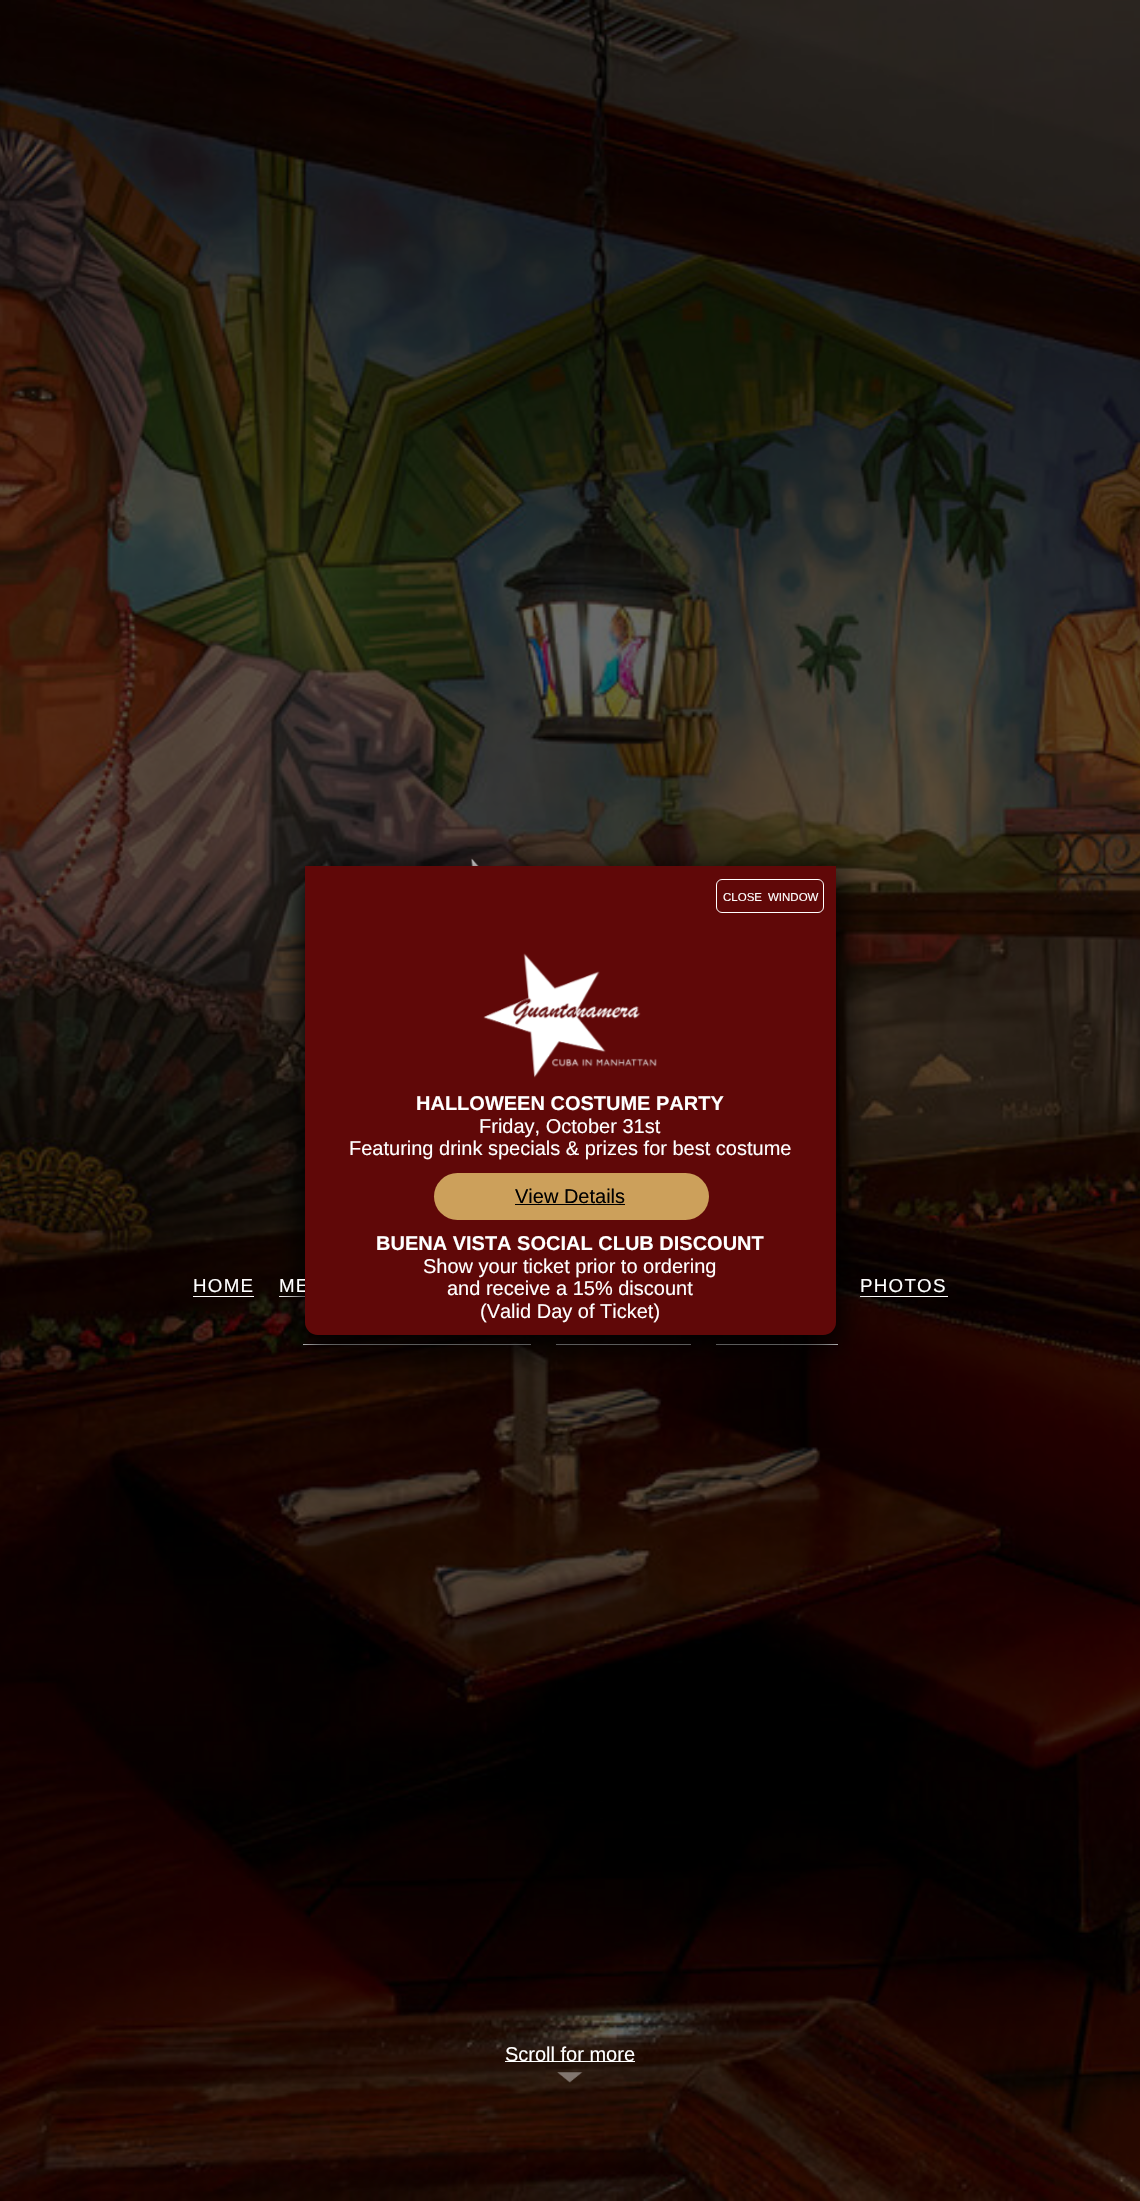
#include "include/core/SkBlurTypes.h"
#include "include/core/SkCanvas.h"
#include "include/core/SkData.h"
#include "include/core/SkFont.h"
#include "include/core/SkFontMgr.h"
#include "include/core/SkImage.h"
#include "include/core/SkMaskFilter.h"
#include "include/core/SkPaint.h"
#include "include/core/SkPathBuilder.h"
#include "include/core/SkTextBlob.h"
#include "include/effects/SkDashPathEffect.h"
#include "include/effects/SkGradientShader.h"
#include "include/utils/SkParsePath.h"

extern sk_sp<SkFontMgr> fontMgr;

void draw(SkCanvas* canvas) {
  SkPaint p;
  p.setAntiAlias(true);
  auto spacedText = [&](const char* s, float x, float y, const SkFont& font, const SkPaint& ink, float letter, float word) {
    std::vector<SkGlyphID> glyphs(font.countText(s, strlen(s), SkTextEncoding::kUTF8));
    std::vector<float> xs(glyphs.size());
    font.textToGlyphs(s, strlen(s), SkTextEncoding::kUTF8, glyphs);
    font.getXPos(glyphs, xs, x);
    float extra = 0;
    for (size_t i = 0; i < glyphs.size(); i++) {
      xs[i] += extra;
      extra += letter + word * (glyphs[i] == font.unicharToGlyph(' '));
    }
    canvas->drawTextBlob(SkTextBlob::MakeFromPosHGlyphs(glyphs, xs, y, font), 0, 0, ink);
  };
  canvas->clear(SK_ColorWHITE);
  canvas->drawImageRect(SkImages::DeferredFromEncodedData(SkData::MakeFromFileName("images/1.png")), SkRect::MakeLTRB(0, 0, 1140, 2201), SkSamplingOptions());
  canvas->drawImageRect(SkImages::DeferredFromEncodedData(SkData::MakeFromFileName("images/3.png")), SkRect::MakeLTRB(471, 858, 479, 866), SkSamplingOptions());
  p.setColor(SK_ColorWHITE);
  canvas->drawRect(SkRect::MakeLTRB(279, 1296, 305, 1297), p);
  canvas->drawRect(SkRect::MakeLTRB(860, 1296, 948, 1297), p);
  canvas->drawRect(SkRect::MakeLTRB(303, 1344, 531, 1345), p);
  canvas->drawRect(SkRect::MakeLTRB(556, 1344, 691, 1345), p);
  canvas->drawRect(SkRect::MakeLTRB(716, 1344, 838, 1345), p);
  p.setColor(SK_ColorBLACK);
  p.setMaskFilter(SkMaskFilter::MakeBlur(kNormal_SkBlurStyle, 15));
  canvas->drawRoundRect(SkRect::MakeLTRB(300, 871, 841, 1350), 18, 18, p);
  p.setMaskFilter(nullptr);
  p.setColor(SK_ColorWHITE);
  canvas->drawRect(SkRect::MakeLTRB(193, 1296, 254, 1297), p);
  canvas->drawRect(SkRect::MakeLTRB(505, 2061, 635, 2062), p);
  canvas->drawImageRect(SkImages::DeferredFromEncodedData(SkData::MakeFromFileName("images/4.png")), SkRect::MakeLTRB(557, 2072, 583, 2083), SkSamplingOptions());
  SkFont font1(fontMgr->matchFamilyStyle("Liberation Sans", SkFontStyle::Normal()), 18.75f);
  font1.setSubpixel(true);
  spacedText("HOME", 193, 1292, font1, p, 1.25f, 0);
  spacedText("ME", 279, 1292, font1, p, 1.25f, 0);
  p.setColor(SkColorSetRGB(96, 8, 8));
  canvas->drawRoundRect(SkRect::MakeLTRB(305, 866, 836, 1335), 13, 13, p);
  SkFont font2(fontMgr->matchFamilyStyle("Liberation Sans", SkFontStyle::Normal()), 20);
  font2.setSubpixel(true);
  p.setColor(SK_ColorWHITE);
  canvas->drawString("(Valid Day of Ticket)", 480, 1318, font2, p);
  canvas->drawString("and receive a 15% discount", 447, 1295, font2, p);
  canvas->drawString("Show your ticket prior to ordering", 423, 1273, font2, p);
  SkFont font3(fontMgr->matchFamilyStyle("Liberation Sans", SkFontStyle::Bold()), 20);
  font3.setSubpixel(true);
  canvas->drawString("BUENA VISTA SOCIAL CLUB DISCOUNT", 376, 1250, font3, p);
  p.setColor(SkColorSetRGB(204, 160, 91));
  canvas->drawRoundRect(SkRect::MakeLTRB(434, 1173, 709, 1220), 23.5f, 23.5f, p);
  p.setColor(SK_ColorBLACK);
  canvas->drawString("View Details", 515, 1203, font2, p);
  canvas->drawRect(SkRect::MakeLTRB(515, 1204, 625, 1205), p);
  p.setColor(SK_ColorWHITE);
  canvas->drawString("Featuring drink specials & prizes for best costume", 349, 1155, font2, p);
  canvas->drawString("Friday, October 31st", 479, 1133, font2, p);
  canvas->drawString("HALLOWEEN COSTUME PARTY", 416, 1110, font3, p);
  canvas->drawImageRect(SkImages::DeferredFromEncodedData(SkData::MakeFromFileName("images/2.png")), SkRect::MakeLTRB(483, 953, 657, 1078), SkSamplingOptions());
  p.setStyle(SkPaint::kStroke_Style);
  p.setStrokeWidth(1);
  canvas->drawRoundRect(SkRect::MakeLTRB(716.5f, 879.5f, 823.5f, 912.5f), 5.5f, 5.5f, p);
  SkFont font4(fontMgr->matchFamilyStyle("Liberation Sans", SkFontStyle::Normal()), 11.5f);
  font4.setSubpixel(true);
  p.setStyle(SkPaint::kFill_Style);
  canvas->drawString("WINDOW", 768, 901, font4, p);
  canvas->drawString("CLOSE", 723, 901, font4, p);
  p.setColor(SkColorSetRGB(96, 8, 8));
  canvas->drawRect(SkRect::MakeLTRB(305, 866, 836, 879), p);
  p.setColor(SK_ColorWHITE);
  spacedText("PHOTOS", 860, 1292, font1, p, 1.25f, 0);
  canvas->drawString("Scroll for more", 505, 2061, font2, p);
}
